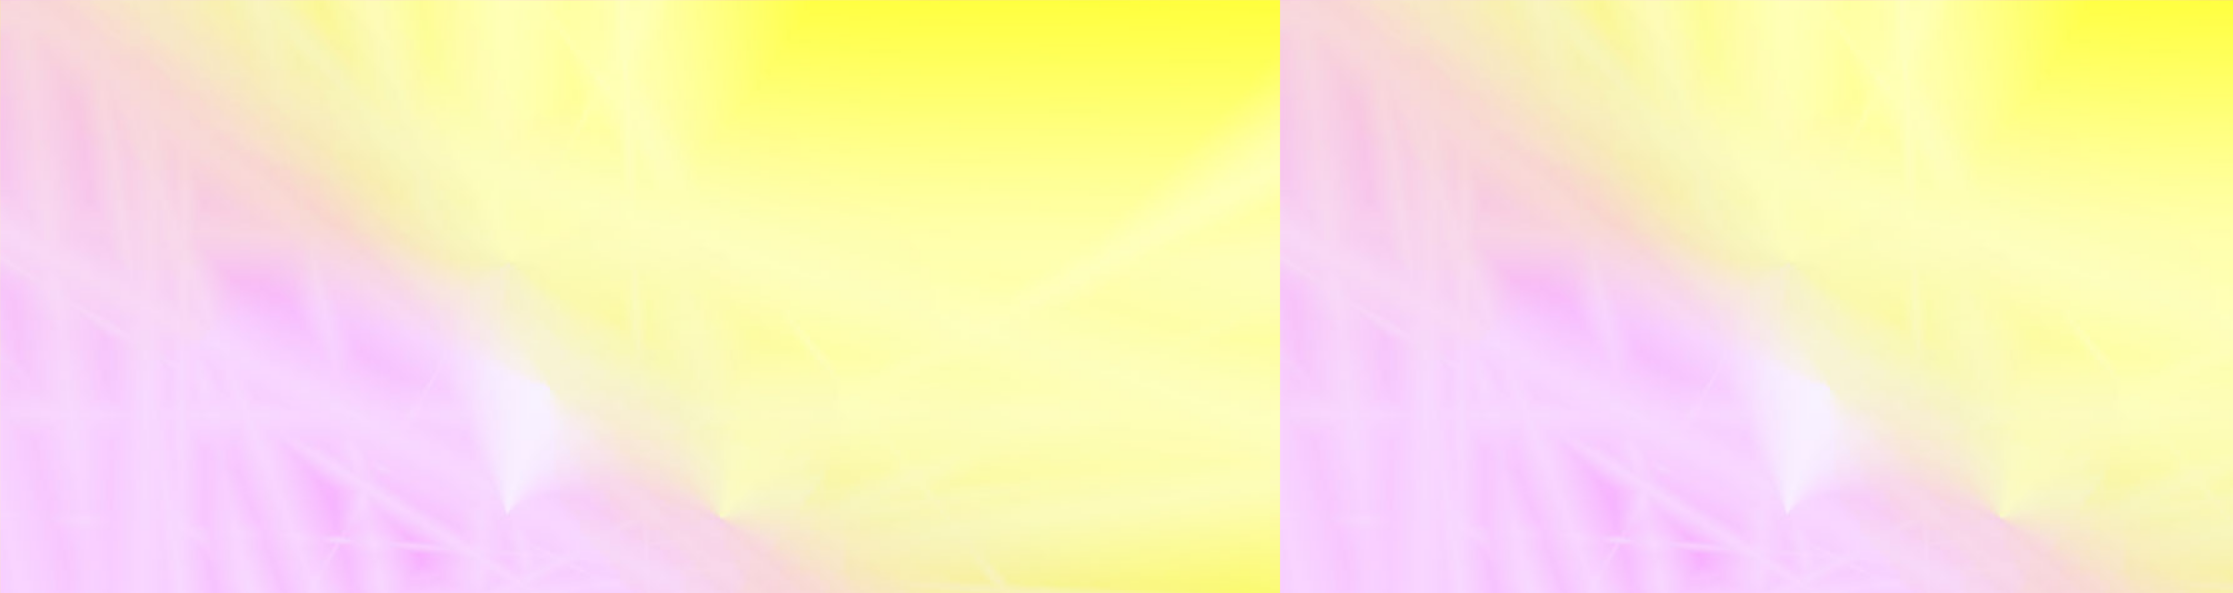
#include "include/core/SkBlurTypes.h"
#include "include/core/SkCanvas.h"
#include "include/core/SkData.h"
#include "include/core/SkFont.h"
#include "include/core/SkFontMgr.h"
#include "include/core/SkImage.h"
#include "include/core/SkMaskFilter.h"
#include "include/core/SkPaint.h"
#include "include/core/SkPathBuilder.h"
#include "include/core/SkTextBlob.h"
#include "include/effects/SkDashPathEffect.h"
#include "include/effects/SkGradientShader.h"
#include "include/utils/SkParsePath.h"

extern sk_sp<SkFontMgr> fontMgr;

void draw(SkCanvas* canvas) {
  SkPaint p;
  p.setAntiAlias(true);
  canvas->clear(SK_ColorWHITE);
  canvas->drawImageRect(SkImages::DeferredFromEncodedData(SkData::MakeFromFileName("images/1.png")), SkRect::MakeLTRB(0, 0, 2233, 593), SkSamplingOptions());
}
